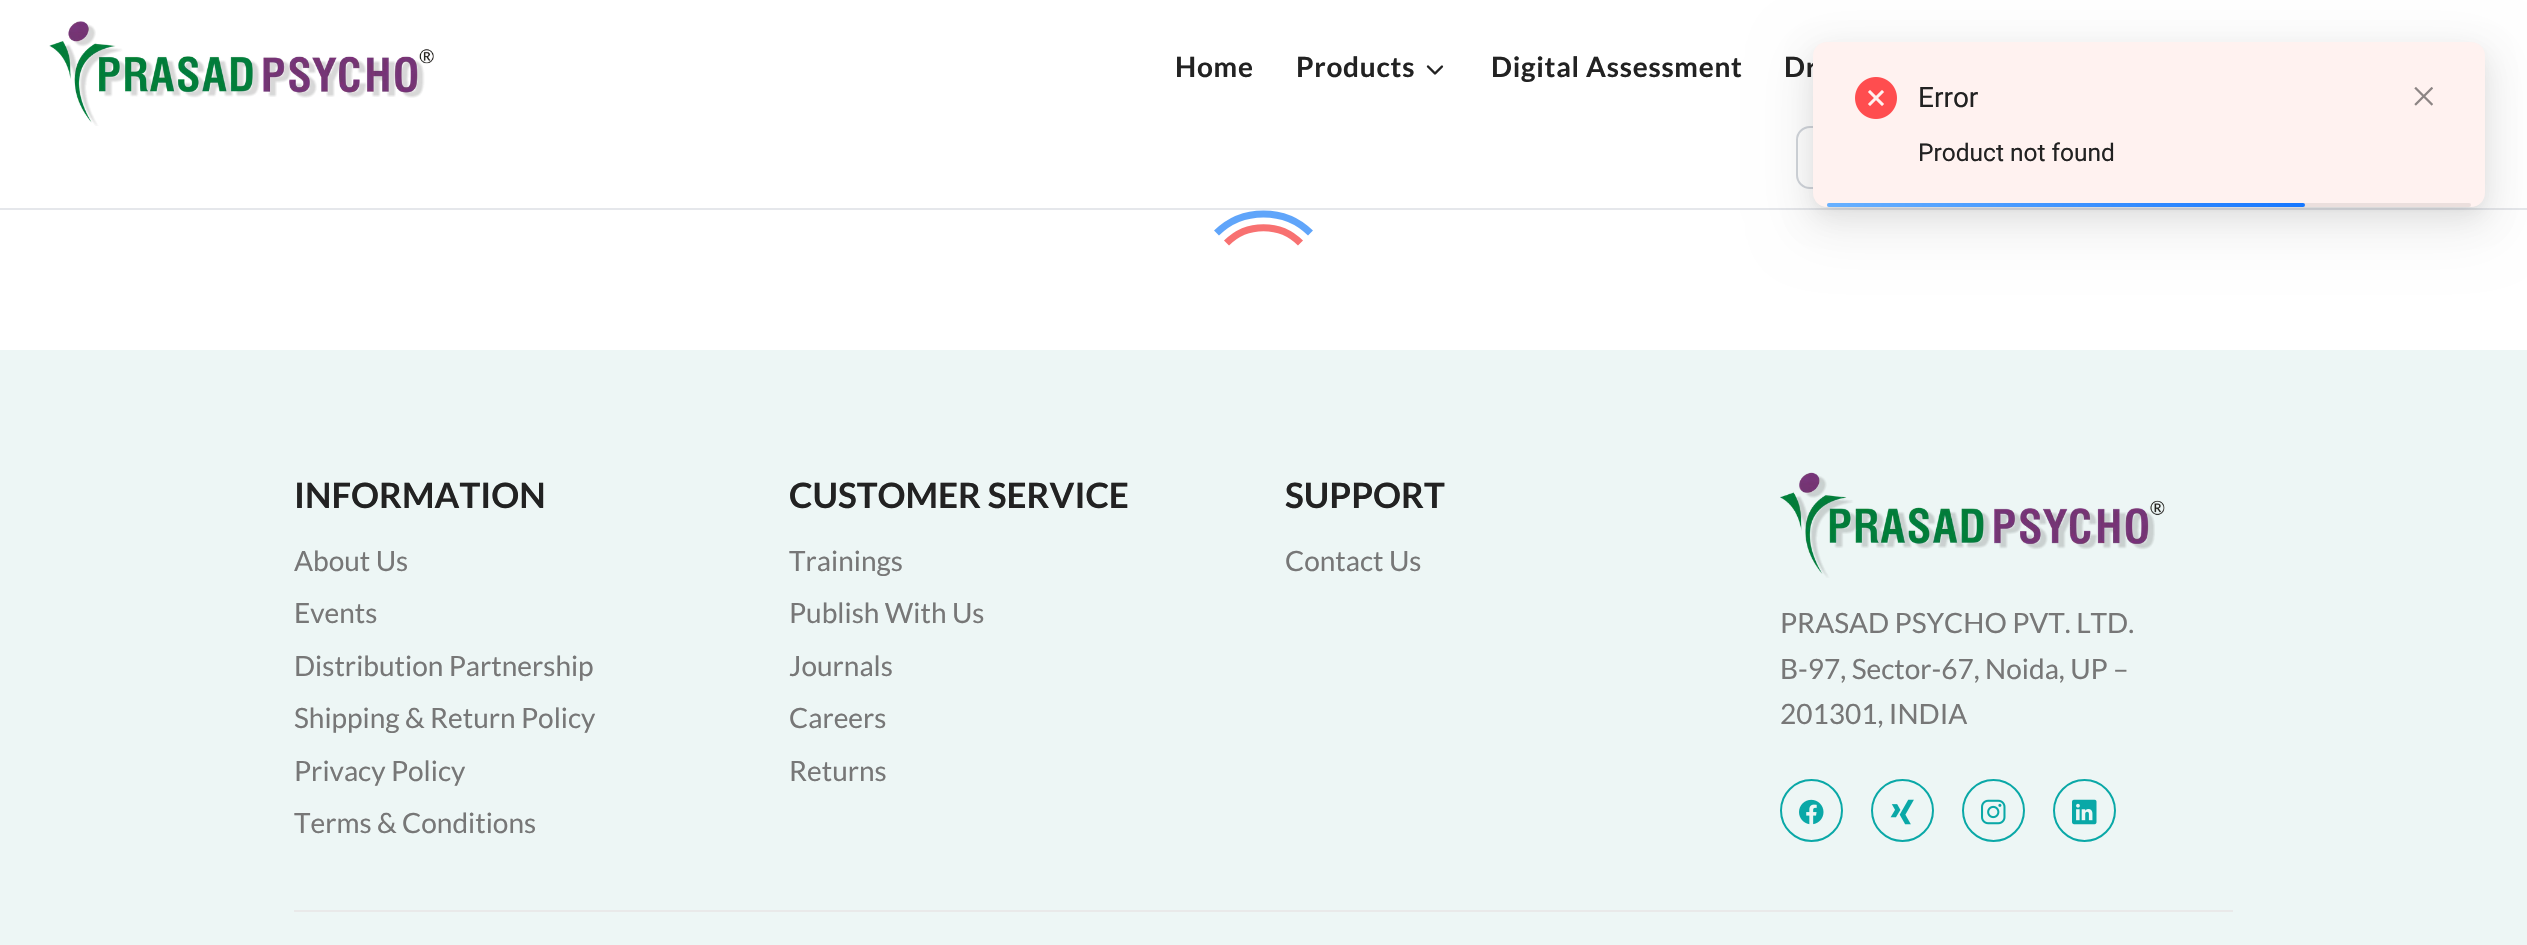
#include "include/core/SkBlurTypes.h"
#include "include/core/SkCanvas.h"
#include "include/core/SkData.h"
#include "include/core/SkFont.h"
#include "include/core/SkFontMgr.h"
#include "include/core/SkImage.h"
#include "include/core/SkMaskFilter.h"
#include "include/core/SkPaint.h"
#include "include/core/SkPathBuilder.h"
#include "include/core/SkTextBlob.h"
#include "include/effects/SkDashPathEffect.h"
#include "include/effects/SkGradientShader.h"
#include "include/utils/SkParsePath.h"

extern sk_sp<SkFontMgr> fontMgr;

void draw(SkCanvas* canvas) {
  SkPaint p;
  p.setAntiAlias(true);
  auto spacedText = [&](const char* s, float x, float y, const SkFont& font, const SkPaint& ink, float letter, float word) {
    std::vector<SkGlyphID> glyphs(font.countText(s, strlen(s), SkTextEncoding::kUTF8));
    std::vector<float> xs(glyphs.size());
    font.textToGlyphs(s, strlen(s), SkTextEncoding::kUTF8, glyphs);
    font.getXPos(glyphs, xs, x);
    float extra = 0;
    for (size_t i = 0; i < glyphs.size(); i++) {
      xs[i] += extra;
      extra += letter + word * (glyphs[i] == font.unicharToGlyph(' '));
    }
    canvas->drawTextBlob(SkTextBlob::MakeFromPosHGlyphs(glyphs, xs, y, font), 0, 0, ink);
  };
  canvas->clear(SK_ColorWHITE);
  p.setColor(SkColorSetRGB(229, 231, 235));
  canvas->drawRect(SkRect::MakeLTRB(0, 208, 2527, 210), p);
  canvas->drawImageRect(SkImages::DeferredFromEncodedData(SkData::MakeFromFileName("images/1.png")), SkRect::MakeLTRB(49, 21, 434, 126), SkSamplingOptions());
  canvas->drawImageRect(SkImages::DeferredFromEncodedData(SkData::MakeFromFileName("images/2.png")), SkRect::MakeLTRB(1426, 65, 1444, 75), SkSamplingOptions());
  p.setStyle(SkPaint::kStroke_Style);
  p.setStrokeWidth(2);
  p.setColor(SkColorSetRGB(209, 213, 219));
  canvas->drawRoundRect(SkRect::MakeLTRB(1797, 127, 2187, 188), 13, 13, p);
  p.setStyle(SkPaint::kFill_Style);
  p.setColor(SkColorSetARGB(13, 0, 0, 0));
  p.setMaskFilter(SkMaskFilter::MakeBlur(kNormal_SkBlurStyle, 24.5f));
  canvas->drawRoundRect(SkRect::MakeLTRB(1799, 44, 2499, 236), 28, 28, p);
  p.setMaskFilter(nullptr);
  p.setColor(SkColorSetARGB(31, 0, 0, 0));
  p.setMaskFilter(SkMaskFilter::MakeBlur(kNormal_SkBlurStyle, 5));
  canvas->drawRoundRect(SkRect::MakeLTRB(1820, 54, 2478, 205), 7, 7, p);
  p.setMaskFilter(nullptr);
  p.setColor(SkColorSetARGB(20, 0, 0, 0));
  p.setMaskFilter(SkMaskFilter::MakeBlur(kNormal_SkBlurStyle, 14));
  canvas->drawRoundRect(SkRect::MakeLTRB(1813, 53, 2485, 217), 14, 14, p);
  p.setMaskFilter(nullptr);
  p.setStyle(SkPaint::kStroke_Style);
  p.setStrokeWidth(7);
  p.setColor(SkColorSetRGB(96, 165, 250));
  canvas->drawPath(SkPathBuilder().moveTo(1216.5f, 233).cubicTo(1242, 207.5f, 1285, 207.5f, 1310.5f, 233).detach(), p);
  p.setColor(SkColorSetRGB(248, 113, 113));
  canvas->drawPath(SkPathBuilder().moveTo(1226.5f, 243).cubicTo(1246.5f, 222.5f, 1280.5f, 222.5f, 1300.5f, 243).detach(), p);
  p.setStyle(SkPaint::kFill_Style);
  p.setColor(SkColorSetRGB(237, 246, 245));
  canvas->drawRect(SkRect::MakeLTRB(0, 350, 2527, 945), p);
  canvas->drawImageRect(SkImages::DeferredFromEncodedData(SkData::MakeFromFileName("images/5.png")), SkRect::MakeLTRB(1780, 472, 2165, 578), SkSamplingOptions());
  p.setStyle(SkPaint::kStroke_Style);
  p.setStrokeWidth(2);
  p.setColor(SkColorSetRGB(10, 168, 167));
  canvas->drawCircle(1811.5f, 810.5f, 30.5f, p);
  canvas->drawImageRect(SkImages::DeferredFromEncodedData(SkData::MakeFromFileName("images/6.png")), SkRect::MakeLTRB(1799, 799, 1824, 825), SkSamplingOptions());
  canvas->drawCircle(1902.5f, 810.5f, 30.5f, p);
  canvas->drawImageRect(SkImages::DeferredFromEncodedData(SkData::MakeFromFileName("images/7.png")), SkRect::MakeLTRB(1890, 799, 1914, 825), SkSamplingOptions());
  canvas->drawCircle(1993.5f, 810.5f, 30.5f, p);
  canvas->drawImageRect(SkImages::DeferredFromEncodedData(SkData::MakeFromFileName("images/8.png")), SkRect::MakeLTRB(1981, 799, 2006, 825), SkSamplingOptions());
  canvas->drawCircle(2084.5f, 810.5f, 30.5f, p);
  canvas->drawImageRect(SkImages::DeferredFromEncodedData(SkData::MakeFromFileName("images/9.png")), SkRect::MakeLTRB(2072, 799, 2097, 825), SkSamplingOptions());
  p.setStyle(SkPaint::kFill_Style);
  p.setColor(SkColorSetRGB(233, 233, 233));
  canvas->drawRect(SkRect::MakeLTRB(294, 910, 2233, 912), p);
  SkFont font1(fontMgr->matchFamilyStyle("Lato", SkFontStyle::Bold()), 28);
  font1.setSubpixel(true);
  p.setColor(SkColorSetRGB(34, 34, 34));
  spacedText("Home", 1175, 77, font1, p, 0.75f, 0);
  spacedText("Products", 1296, 77, font1, p, 0.75f, 0);
  spacedText("Digital Assessment", 1491, 77, font1, p, 0.75f, 0);
  spacedText("Dr", 1784, 77, font1, p, 0.75f, 0);
  p.setColor(SkColorSetRGB(255, 242, 240));
  canvas->drawRoundRect(SkRect::MakeLTRB(1813, 42, 2485, 207), 14, 14, p);
  canvas->drawImageRect(SkImages::DeferredFromEncodedData(SkData::MakeFromFileName("images/3.png")), SkRect::MakeLTRB(1855, 77, 1897, 119), SkSamplingOptions());
  SkFont font2(fontMgr->matchFamilyStyle("Roboto", SkFontStyle::Normal()), 28);
  font2.setSubpixel(true);
  p.setColor(SkColorSetRGB(34, 34, 34));
  canvas->drawString("Error", 1918, 107, font2, p);
  SkFont font3(fontMgr->matchFamilyStyle("Roboto", SkFontStyle::Normal()), 24.5f);
  font3.setSubpixel(true);
  canvas->drawString("Product not found", 1918, 161, font3, p);
  canvas->drawImageRect(SkImages::DeferredFromEncodedData(SkData::MakeFromFileName("images/4.png")), SkRect::MakeLTRB(2414, 87, 2433, 106), SkSamplingOptions());
  p.setColor(SkColorSetRGB(235, 223, 221));
  canvas->drawRoundRect(SkRect::MakeLTRB(1827, 203, 2471, 207), 2, 2, p);
  {
    const SkColor colors[] = {SkColorSetRGB(105, 177, 255), SkColorSetRGB(22, 119, 255)};
    const float stops[] = {0, 1};
    const SkPoint ends[] = {{1827, 205}, {2305, 205}};
    p.setShader(SkGradientShader::MakeLinear(ends, colors, stops, 2, SkTileMode::kClamp));
    p.setAlpha(255);
  }
  canvas->drawRoundRect(SkRect::MakeLTRB(1827, 203, 2305, 207), 2, 2, p);
  SkFont font4(fontMgr->matchFamilyStyle("Lato", SkFontStyle::Bold()), 35);
  font4.setSubpixel(true);
  p.setShader(nullptr);
  p.setColor(SkColorSetRGB(34, 34, 34));
  canvas->drawString("INFORMATION", 294, 508, font4, p);
  SkFont font5(fontMgr->matchFamilyStyle("Lato", SkFontStyle::Normal()), 28);
  font5.setSubpixel(true);
  p.setColor(SkColorSetRGB(119, 119, 119));
  canvas->drawString("About Us", 294, 571, font5, p);
  canvas->drawString("Events", 294, 623, font5, p);
  canvas->drawString("Distribution Partnership", 294, 676, font5, p);
  canvas->drawString("Shipping & Return Policy", 294, 728, font5, p);
  canvas->drawString("Privacy Policy", 294, 781, font5, p);
  canvas->drawString("Terms & Conditions", 294, 833, font5, p);
  p.setColor(SkColorSetRGB(34, 34, 34));
  canvas->drawString("CUSTOMER SERVICE", 789, 508, font4, p);
  p.setColor(SkColorSetRGB(119, 119, 119));
  canvas->drawString("Trainings", 789, 571, font5, p);
  canvas->drawString("Publish With Us", 789, 623, font5, p);
  canvas->drawString("Journals", 789, 676, font5, p);
  canvas->drawString("Careers", 789, 728, font5, p);
  canvas->drawString("Returns", 789, 781, font5, p);
  p.setColor(SkColorSetRGB(34, 34, 34));
  canvas->drawString("SUPPORT", 1285, 508, font4, p);
  p.setColor(SkColorSetRGB(119, 119, 119));
  canvas->drawString("Contact Us", 1285, 571, font5, p);
  canvas->drawString("PRASAD PSYCHO PVT. LTD.", 1780, 633, font5, p);
  canvas->drawString("B-97, Sector-67, Noida, UP –", 1780, 679, font5, p);
  canvas->drawString("201301, INDIA", 1780, 724, font5, p);
}
